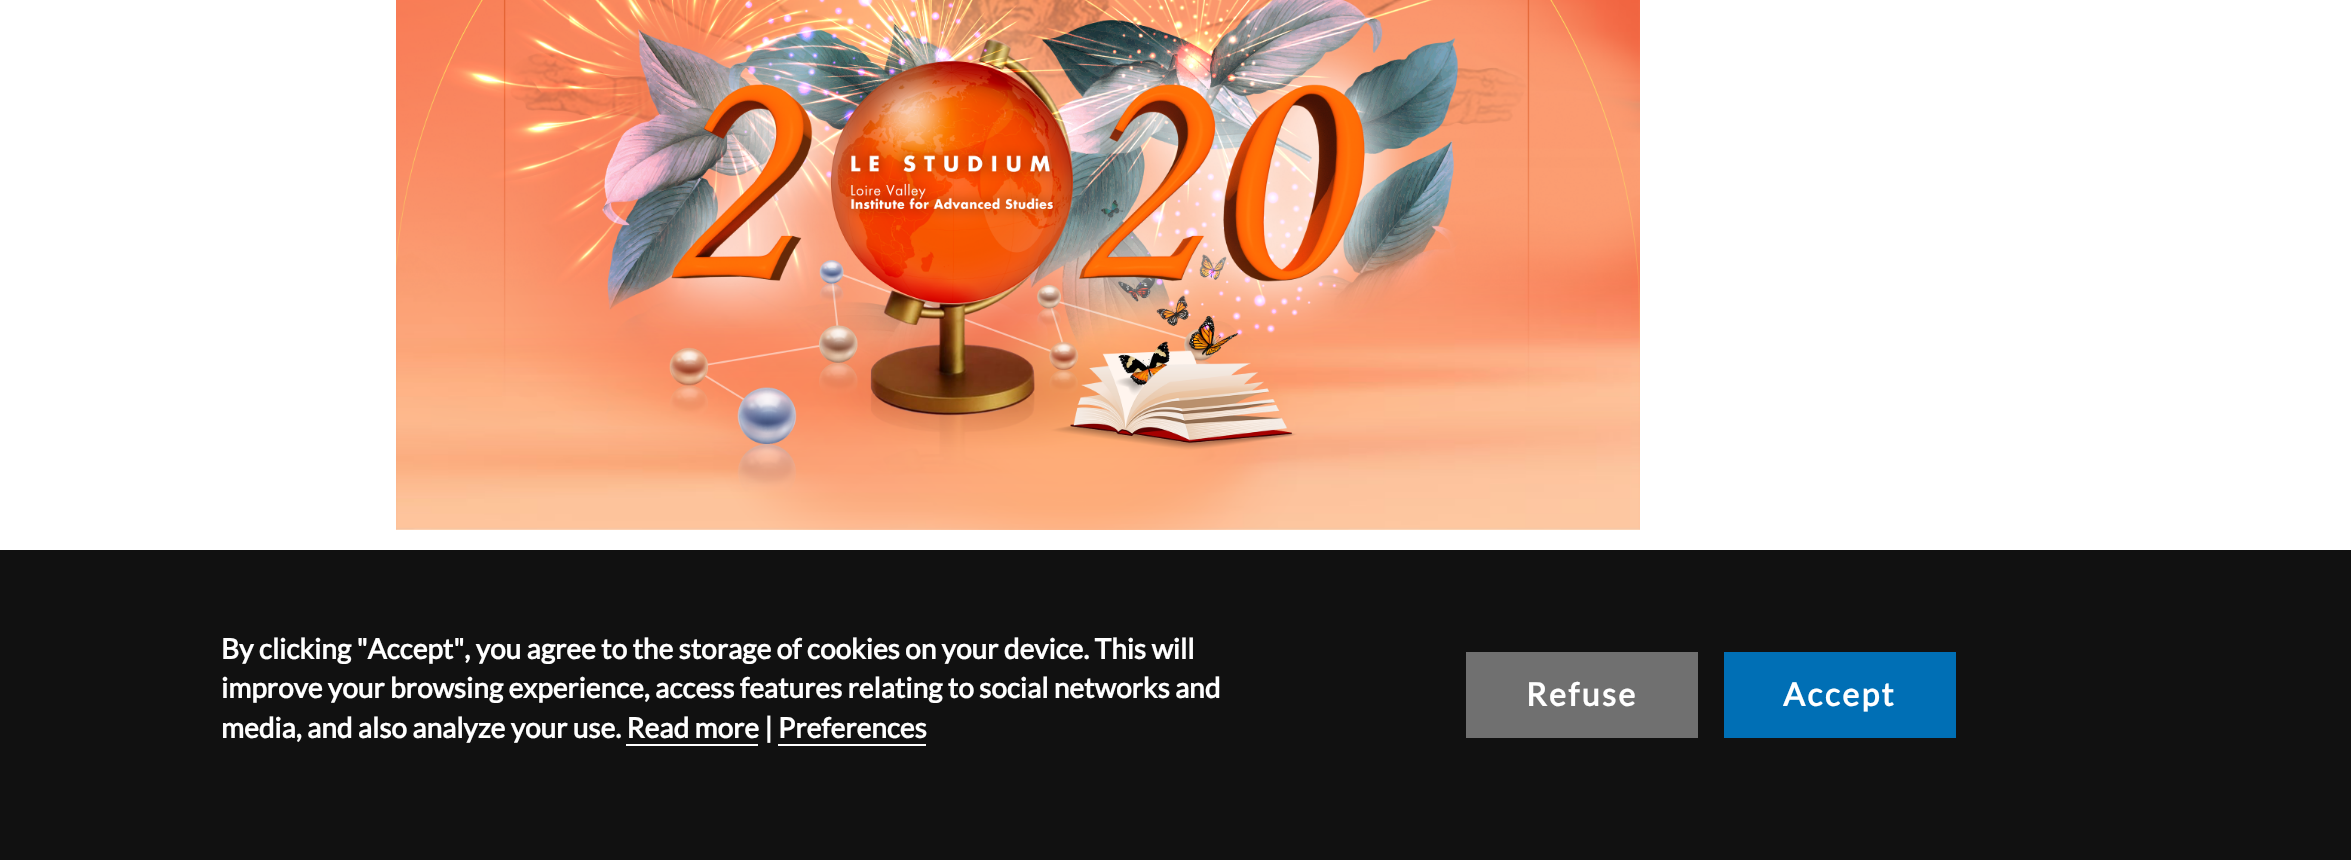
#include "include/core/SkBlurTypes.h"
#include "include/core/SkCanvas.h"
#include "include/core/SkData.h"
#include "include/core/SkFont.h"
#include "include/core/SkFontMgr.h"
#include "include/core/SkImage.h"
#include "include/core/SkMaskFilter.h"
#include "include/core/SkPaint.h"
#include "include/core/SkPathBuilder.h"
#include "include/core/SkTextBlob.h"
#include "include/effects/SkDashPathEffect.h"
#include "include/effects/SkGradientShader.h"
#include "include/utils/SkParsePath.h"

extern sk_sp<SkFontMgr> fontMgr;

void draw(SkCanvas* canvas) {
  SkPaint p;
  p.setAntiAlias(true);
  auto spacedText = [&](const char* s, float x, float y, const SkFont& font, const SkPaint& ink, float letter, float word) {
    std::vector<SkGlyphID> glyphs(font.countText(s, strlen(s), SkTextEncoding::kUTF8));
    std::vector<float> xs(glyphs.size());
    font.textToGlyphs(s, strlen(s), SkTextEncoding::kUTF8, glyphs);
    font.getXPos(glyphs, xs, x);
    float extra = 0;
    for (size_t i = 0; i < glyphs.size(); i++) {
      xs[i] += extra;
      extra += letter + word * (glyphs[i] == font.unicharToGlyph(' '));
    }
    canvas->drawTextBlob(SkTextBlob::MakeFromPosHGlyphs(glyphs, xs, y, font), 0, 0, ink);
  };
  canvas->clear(SK_ColorWHITE);
  canvas->drawImageRect(SkImages::DeferredFromEncodedData(SkData::MakeFromFileName("images/1.png")), SkRect::MakeLTRB(396, 0, 1640, 530), SkSamplingOptions());
  p.setColor(SkColorSetRGB(17, 17, 17));
  canvas->drawRect(SkRect::MakeLTRB(0, 550, 2351, 860), p);
  p.setColor(SK_ColorWHITE);
  canvas->drawRect(SkRect::MakeLTRB(626, 744, 758, 746), p);
  canvas->drawRect(SkRect::MakeLTRB(778, 744, 926, 746), p);
  p.setColor(SkColorSetRGB(112, 112, 112));
  canvas->drawRect(SkRect::MakeLTRB(1466, 652, 1698, 738), p);
  p.setColor(SkColorSetRGB(0, 111, 181));
  canvas->drawRect(SkRect::MakeLTRB(1724, 652, 1956, 738), p);
  SkFont font1(fontMgr->matchFamilyStyle("Lato", SkFontStyle::Bold()), 28);
  font1.setSubpixel(true);
  p.setColor(SK_ColorWHITE);
  canvas->drawString("By clicking \"Accept\", you agree to the storage of cookies on your device. This will", 221, 659, font1, p);
  canvas->drawString("improve your browsing experience, access features relating to social networks and", 221, 698, font1, p);
  canvas->drawString("media, and also analyze your use. Read more | Preferences", 221, 738, font1, p);
  SkFont font2(fontMgr->matchFamilyStyle("Lato", SkFontStyle::Bold()), 32);
  font2.setSubpixel(true);
  spacedText("Refuse", 1526, 706, font2, p, 2.5f, 0);
  spacedText("Accept", 1783, 706, font2, p, 2.5f, 0);
}
